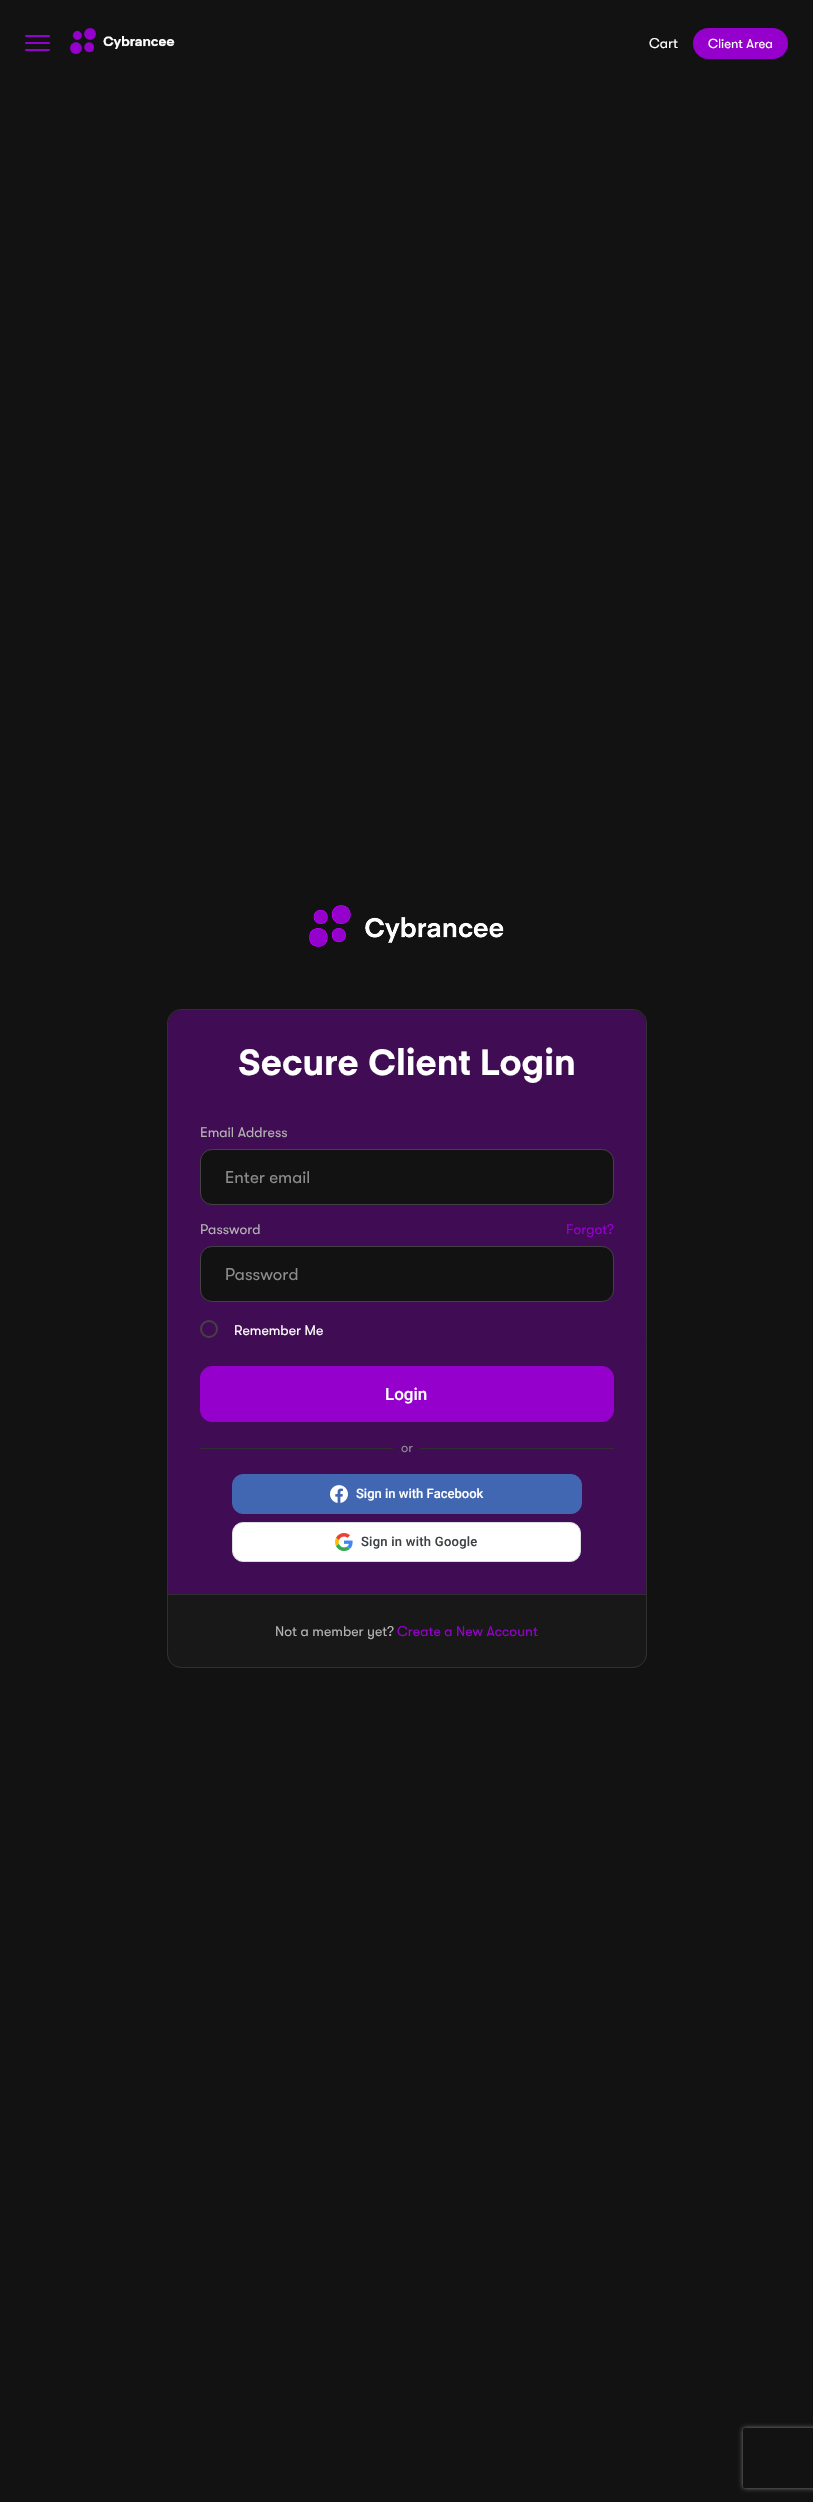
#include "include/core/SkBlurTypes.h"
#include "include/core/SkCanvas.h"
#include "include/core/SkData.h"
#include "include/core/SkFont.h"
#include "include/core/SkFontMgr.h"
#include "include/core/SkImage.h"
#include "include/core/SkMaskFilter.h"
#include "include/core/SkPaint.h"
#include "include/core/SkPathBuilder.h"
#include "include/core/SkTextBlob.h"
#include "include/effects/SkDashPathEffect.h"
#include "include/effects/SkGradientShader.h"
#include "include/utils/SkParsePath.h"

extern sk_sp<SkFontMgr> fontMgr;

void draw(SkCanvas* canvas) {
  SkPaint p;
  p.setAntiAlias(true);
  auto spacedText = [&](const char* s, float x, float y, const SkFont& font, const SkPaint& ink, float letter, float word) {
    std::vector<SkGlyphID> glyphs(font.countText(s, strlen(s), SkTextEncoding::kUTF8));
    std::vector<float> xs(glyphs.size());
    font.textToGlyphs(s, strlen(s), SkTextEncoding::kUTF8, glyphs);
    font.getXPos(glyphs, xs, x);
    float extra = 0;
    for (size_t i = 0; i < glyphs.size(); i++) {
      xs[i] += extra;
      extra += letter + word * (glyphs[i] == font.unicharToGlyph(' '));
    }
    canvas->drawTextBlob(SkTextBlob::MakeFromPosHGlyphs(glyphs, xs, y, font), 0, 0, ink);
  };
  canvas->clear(SkColorSetRGB(18, 18, 18));
  p.setColor(SkColorSetRGB(149, 0, 204));
  canvas->drawRoundRect(SkRect::MakeLTRB(25, 35, 50, 37), 1, 1, p);
  canvas->drawRoundRect(SkRect::MakeLTRB(25, 42, 50, 44), 1, 1, p);
  canvas->drawRoundRect(SkRect::MakeLTRB(25, 49, 50, 51), 1, 1, p);
  canvas->drawImageRect(SkImages::DeferredFromEncodedData(SkData::MakeFromFileName("images/1.png")), SkRect::MakeLTRB(70, 28, 175, 54), SkSamplingOptions());
  canvas->drawRoundRect(SkRect::MakeLTRB(693, 28, 788, 59), 15.5f, 15.5f, p);
  canvas->drawImageRect(SkImages::DeferredFromEncodedData(SkData::MakeFromFileName("images/2.png")), SkRect::MakeLTRB(309, 905, 504, 947), SkSamplingOptions());
  p.setColor(SkColorSetRGB(24, 24, 24));
  canvas->drawRoundRect(SkRect::MakeLTRB(167.5f, 1009.5f, 646.5f, 1667.5f), 13.5f, 13.5f, p);
  p.setStyle(SkPaint::kStroke_Style);
  p.setStrokeWidth(1);
  p.setColor(SkColorSetRGB(48, 48, 48));
  canvas->drawRoundRect(SkRect::MakeLTRB(167.5f, 1009.5f, 646.5f, 1667.5f), 13.5f, 13.5f, p);
  p.setStyle(SkPaint::kFill_Style);
  p.setColor(SkColorSetRGB(64, 12, 83));
  canvas->drawPath(SkPathBuilder().moveTo(182, 1010).lineTo(632, 1010).cubicTo(639.5f, 1010, 646, 1016.5f, 646, 1024).lineTo(646, 1594).lineTo(168, 1594).lineTo(168, 1024).cubicTo(168, 1016.5f, 174.5f, 1010, 182, 1010).close().detach(), p);
  p.setColor(SkColorSetRGB(18, 18, 18));
  canvas->drawRoundRect(SkRect::MakeLTRB(200.5f, 1149.5f, 613.5f, 1204.5f), 11.5f, 11.5f, p);
  p.setStyle(SkPaint::kStroke_Style);
  p.setColor(SkColorSetRGB(66, 66, 66));
  canvas->drawRoundRect(SkRect::MakeLTRB(200.5f, 1149.5f, 613.5f, 1204.5f), 11.5f, 11.5f, p);
  p.setStyle(SkPaint::kFill_Style);
  p.setColor(SkColorSetRGB(18, 18, 18));
  canvas->drawRoundRect(SkRect::MakeLTRB(200.5f, 1246.5f, 613.5f, 1301.5f), 11.5f, 11.5f, p);
  p.setStyle(SkPaint::kStroke_Style);
  p.setColor(SkColorSetRGB(66, 66, 66));
  canvas->drawRoundRect(SkRect::MakeLTRB(200.5f, 1246.5f, 613.5f, 1301.5f), 11.5f, 11.5f, p);
  p.setStrokeWidth(2);
  canvas->drawCircle(209, 1329, 8, p);
  p.setStyle(SkPaint::kFill_Style);
  p.setColor(SkColorSetRGB(149, 0, 204));
  canvas->drawRoundRect(SkRect::MakeLTRB(200.5f, 1366.5f, 613.5f, 1421.5f), 11.5f, 11.5f, p);
  p.setStyle(SkPaint::kStroke_Style);
  p.setStrokeWidth(1);
  canvas->drawRoundRect(SkRect::MakeLTRB(200.5f, 1366.5f, 613.5f, 1421.5f), 11.5f, 11.5f, p);
  canvas->save();
  canvas->clipPath(SkPathBuilder(SkPathFillType::kEvenOdd).moveTo(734, 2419).lineTo(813, 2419).lineTo(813, 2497).lineTo(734, 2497).close().moveTo(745, 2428).lineTo(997, 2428).cubicTo(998, 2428, 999, 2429, 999, 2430).lineTo(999, 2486).cubicTo(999, 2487, 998, 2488, 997, 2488).lineTo(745, 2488).cubicTo(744, 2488, 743, 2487, 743, 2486).lineTo(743, 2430).cubicTo(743, 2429, 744, 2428, 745, 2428).close().detach(), true);
  p.setStyle(SkPaint::kFill_Style);
  p.setColor(SkColorSetRGB(128, 128, 128));
  p.setMaskFilter(SkMaskFilter::MakeBlur(kNormal_SkBlurStyle, 2.5f));
  canvas->drawRoundRect(SkRect::MakeLTRB(743, 2428, 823, 2488), 2, 2, p);
  p.setMaskFilter(nullptr);
  canvas->restore();
  p.setColor(SkColorSetRGB(46, 46, 46));
  canvas->drawRect(SkRect::MakeLTRB(200, 1448, 393, 1449), p);
  canvas->drawRect(SkRect::MakeLTRB(420, 1448, 614, 1449), p);
  p.setColor(SkColorSetRGB(66, 103, 178));
  canvas->drawRoundRect(SkRect::MakeLTRB(232.5f, 1474.5f, 581.5f, 1513.5f), 10.5f, 10.5f, p);
  p.setStyle(SkPaint::kStroke_Style);
  canvas->drawRoundRect(SkRect::MakeLTRB(232.5f, 1474.5f, 581.5f, 1513.5f), 10.5f, 10.5f, p);
  canvas->drawImageRect(SkImages::DeferredFromEncodedData(SkData::MakeFromFileName("images/3.png")), SkRect::MakeLTRB(330, 1485, 348, 1503), SkSamplingOptions());
  p.setStyle(SkPaint::kFill_Style);
  p.setColor(SK_ColorWHITE);
  canvas->drawRoundRect(SkRect::MakeLTRB(232.5f, 1522.5f, 580.5f, 1561.5f), 10.5f, 10.5f, p);
  p.setStyle(SkPaint::kStroke_Style);
  p.setColor(SkColorSetRGB(218, 220, 224));
  canvas->drawRoundRect(SkRect::MakeLTRB(232.5f, 1522.5f, 580.5f, 1561.5f), 10.5f, 10.5f, p);
  canvas->drawImageRect(SkImages::DeferredFromEncodedData(SkData::MakeFromFileName("images/4.png")), SkRect::MakeLTRB(335, 1533, 353, 1551), SkSamplingOptions());
  p.setStyle(SkPaint::kFill_Style);
  p.setColor(SkColorSetRGB(46, 46, 46));
  canvas->drawRect(SkRect::MakeLTRB(168, 1594, 646, 1595), p);
  SkFont font1(fontMgr->matchFamilyStyle("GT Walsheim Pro", SkFontStyle::Normal()), 14);
  font1.setSubpixel(true);
  p.setColor(SK_ColorWHITE);
  canvas->drawString("Cart", 649, 48, font1, p);
  SkFont font2(fontMgr->matchFamilyStyle("GT Walsheim Pro", SkFontStyle::Normal()), 13);
  font2.setSubpixel(true);
  canvas->drawString("Client Area", 708, 48, font2, p);
  SkFont font3(fontMgr->matchFamilyStyle("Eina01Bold", SkFontStyle::Bold()), 36);
  font3.setSubpixel(true);
  canvas->drawString("Secure Client Login", 238, 1075, font3, p);
  p.setColor(SkColorSetRGB(179, 179, 179));
  canvas->drawString("Email Address", 200, 1137, font1, p);
  SkFont font4(fontMgr->matchFamilyStyle("GT Walsheim Pro", SkFontStyle::Normal()), 17);
  font4.setSubpixel(true);
  p.setColor(SkColorSetRGB(140, 140, 140));
  canvas->drawString("Enter email", 225, 1183, font4, p);
  p.setColor(SkColorSetRGB(179, 179, 179));
  canvas->drawString("Password", 200, 1234, font1, p);
  p.setColor(SkColorSetRGB(149, 0, 204));
  canvas->drawString("Forgot?", 566, 1234, font1, p);
  p.setColor(SkColorSetRGB(140, 140, 140));
  canvas->drawString("Password", 225, 1280, font4, p);
  p.setColor(SK_ColorWHITE);
  canvas->drawString("Remember Me", 234, 1335, font1, p);
  SkFont font5(fontMgr->matchFamilyStyle("Roboto", SkFontStyle(500, SkFontStyle::kNormal_Width, SkFontStyle::kUpright_Slant)), 17);
  font5.setSubpixel(true);
  canvas->drawString("Login", 385, 1400, font5, p);
  p.setColor(SkColorSetRGB(140, 140, 140));
  canvas->drawString("or", 401, 1452, font2, p);
  SkFont font6(fontMgr->matchFamilyStyle("Roboto", SkFontStyle(500, SkFontStyle::kNormal_Width, SkFontStyle::kUpright_Slant)), 13);
  font6.setSubpixel(true);
  p.setColor(SK_ColorWHITE);
  canvas->drawString("Sign in with Facebook", 356, 1498, font6, p);
  p.setColor(SkColorSetRGB(60, 64, 67));
  spacedText("Sign in with Google", 361, 1546, font6, p, 0.25f, 0);
  p.setColor(SkColorSetRGB(179, 179, 179));
  canvas->drawString("Not a member yet?", 275, 1636, font1, p);
  p.setColor(SkColorSetRGB(149, 0, 204));
  canvas->drawString("Create a New Account", 397, 1636, font1, p);
}
